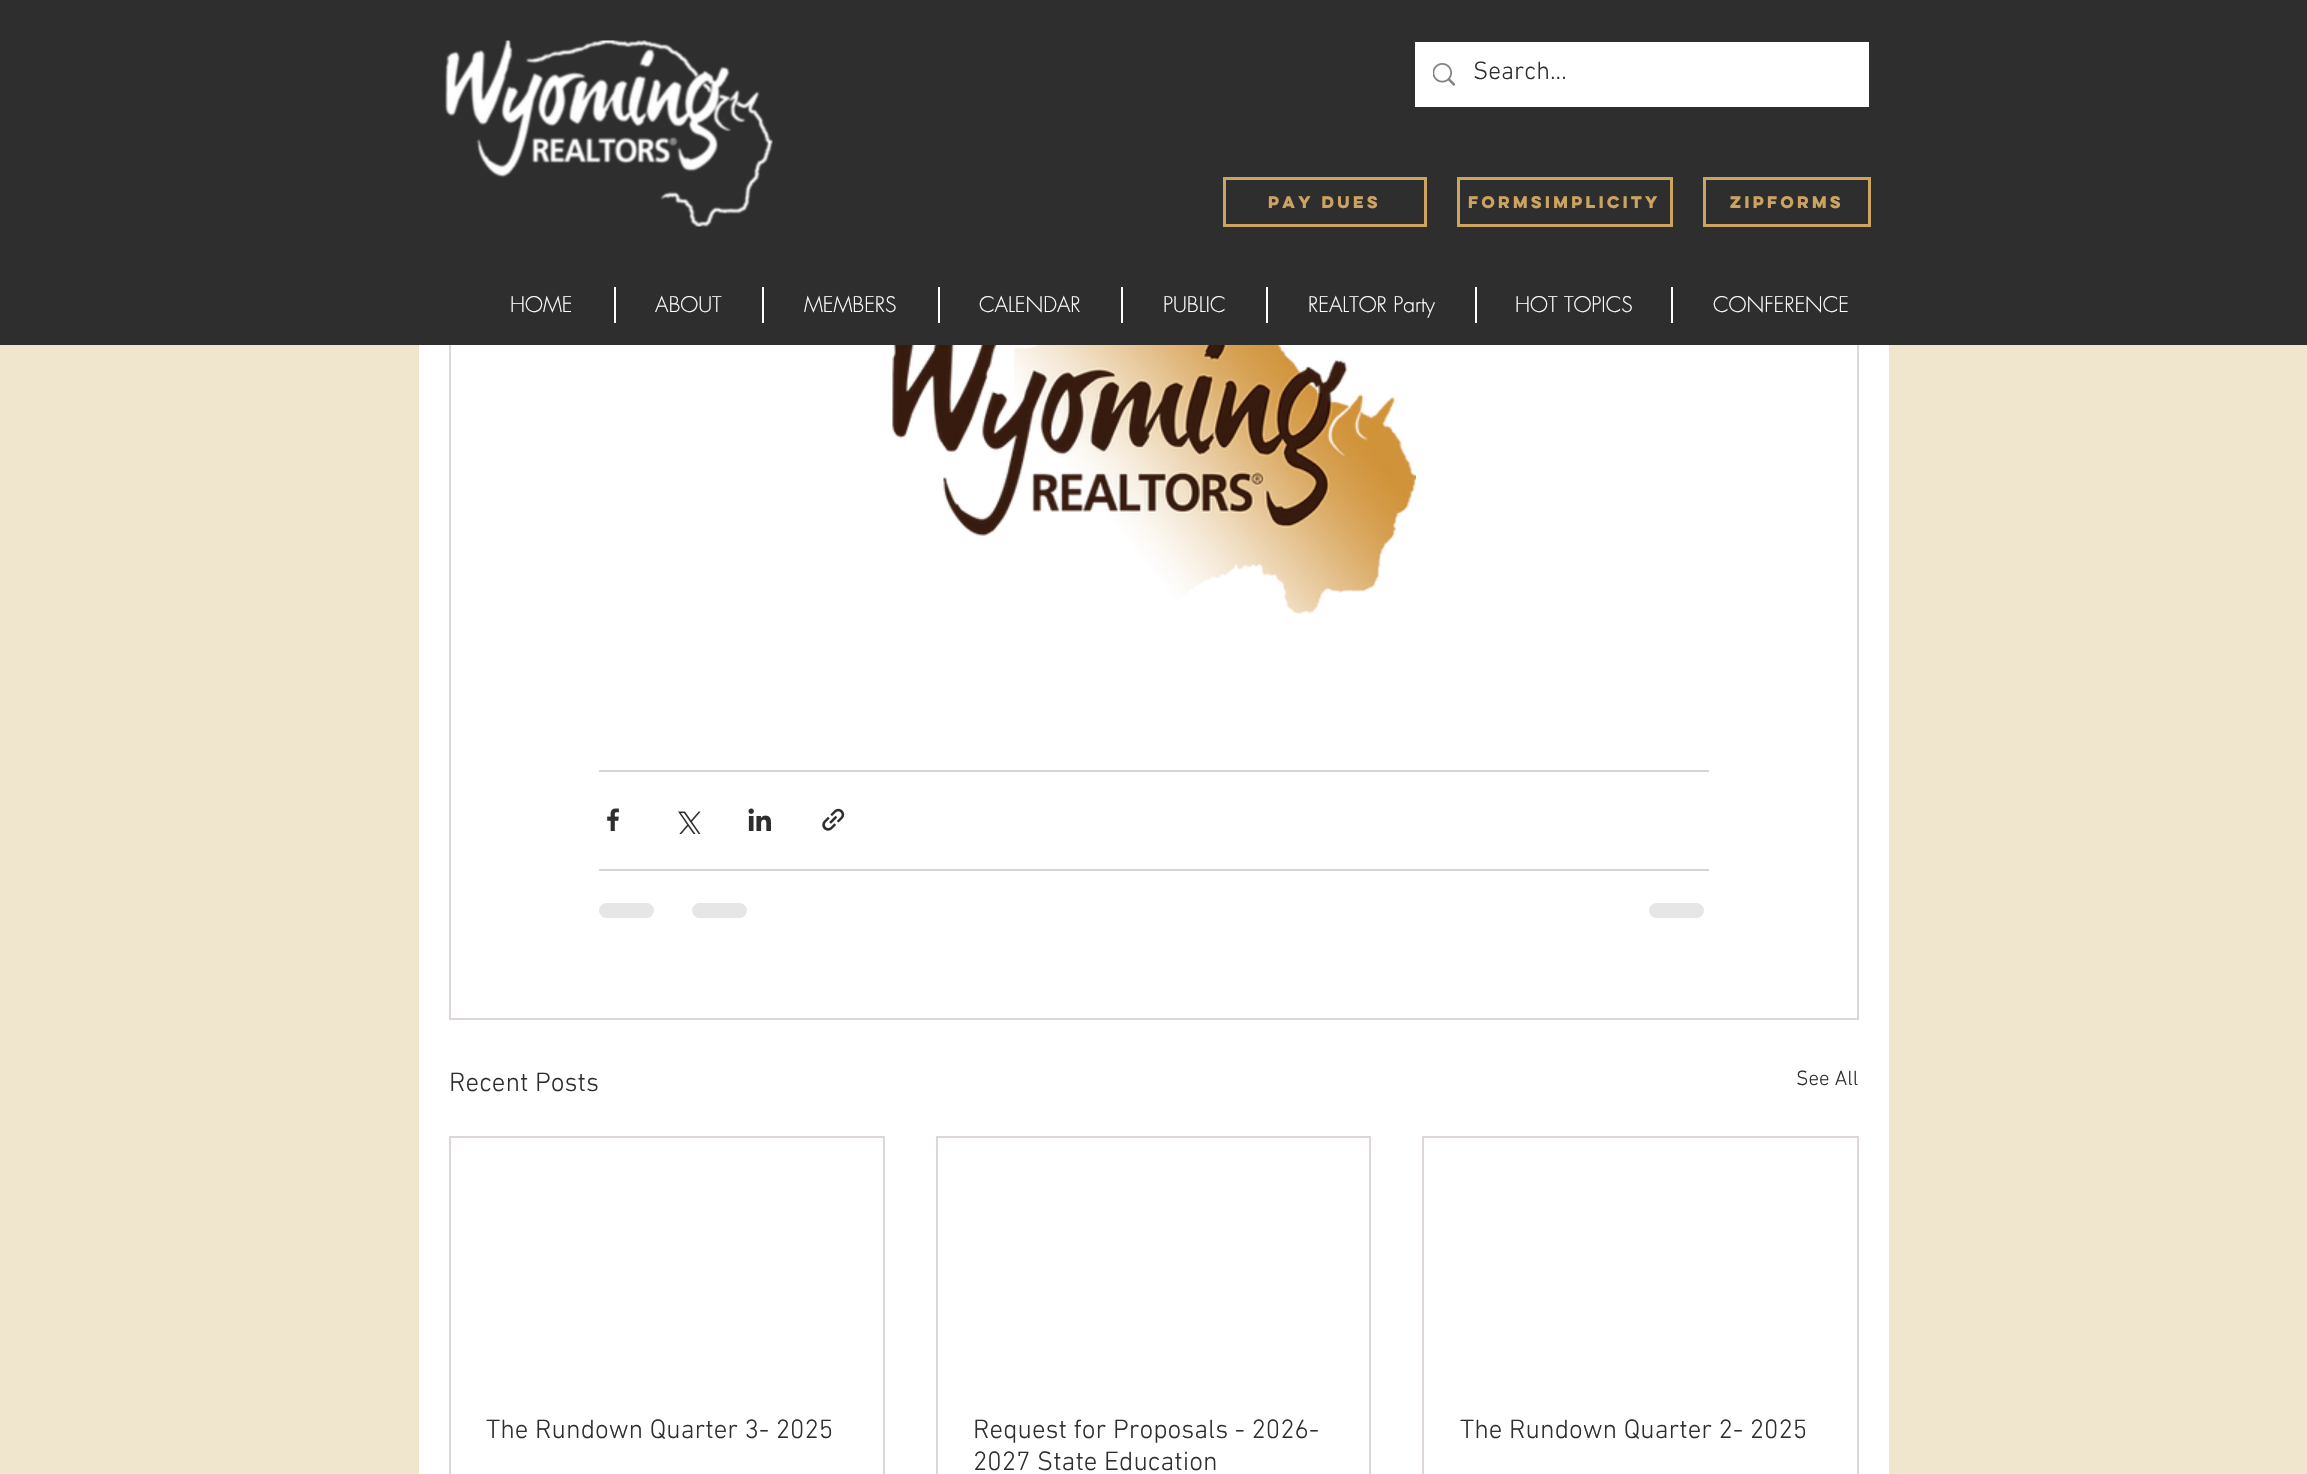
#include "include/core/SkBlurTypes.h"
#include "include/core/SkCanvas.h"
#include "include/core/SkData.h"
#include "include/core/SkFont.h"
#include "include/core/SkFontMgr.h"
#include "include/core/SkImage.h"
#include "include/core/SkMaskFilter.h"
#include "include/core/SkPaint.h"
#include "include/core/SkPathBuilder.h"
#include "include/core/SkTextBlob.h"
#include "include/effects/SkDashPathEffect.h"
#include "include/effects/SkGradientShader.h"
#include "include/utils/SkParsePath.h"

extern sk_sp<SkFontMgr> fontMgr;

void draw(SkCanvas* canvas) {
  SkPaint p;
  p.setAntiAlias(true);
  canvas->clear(SkColorSetRGB(240, 230, 206));
  p.setColor(SK_ColorWHITE);
  canvas->drawRect(SkRect::MakeLTRB(419, 345, 1889, 1474), p);
  p.setStyle(SkPaint::kStroke_Style);
  p.setStrokeWidth(2);
  p.setColor(SkColorSetRGB(221, 215, 215));
  canvas->drawRect(SkRect::MakeLTRB(450, -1, 1858, 1019), p);
  p.setStyle(SkPaint::kFill_Style);
  p.setColor(SkColorSetRGB(47, 46, 46));
  canvas->drawRect(SkRect::MakeLTRB(0, 0, 2307, 345), p);
  canvas->drawImageRect(SkImages::DeferredFromEncodedData(SkData::MakeFromFileName("images/1.png")), SkRect::MakeLTRB(445, 40, 773, 227), SkSamplingOptions());
  p.setColor(SK_ColorWHITE);
  canvas->drawRect(SkRect::MakeLTRB(1415, 42, 1869, 107), p);
  canvas->drawImageRect(SkImages::DeferredFromEncodedData(SkData::MakeFromFileName("images/2.png")), SkRect::MakeLTRB(1433, 63, 1455, 86), SkSamplingOptions());
  p.setStyle(SkPaint::kStroke_Style);
  p.setStrokeWidth(3);
  p.setColor(SkColorSetRGB(204, 163, 95));
  canvas->drawRect(SkRect::MakeLTRB(1224.5f, 178.5f, 1425.5f, 225.5f), p);
  canvas->drawRect(SkRect::MakeLTRB(1458.5f, 178.5f, 1671.5f, 225.5f), p);
  canvas->drawRect(SkRect::MakeLTRB(1704.5f, 178.5f, 1869.5f, 225.5f), p);
  p.setStyle(SkPaint::kFill_Style);
  p.setColor(SK_ColorWHITE);
  canvas->drawRect(SkRect::MakeLTRB(614, 287, 616, 323), p);
  canvas->drawRect(SkRect::MakeLTRB(762, 287, 764, 323), p);
  canvas->drawRect(SkRect::MakeLTRB(938, 287, 940, 323), p);
  canvas->drawRect(SkRect::MakeLTRB(1121, 287, 1123, 323), p);
  canvas->drawRect(SkRect::MakeLTRB(1266, 287, 1268, 323), p);
  canvas->drawRect(SkRect::MakeLTRB(1475, 287, 1477, 323), p);
  canvas->drawRect(SkRect::MakeLTRB(1671, 287, 1673, 323), p);
  canvas->drawImageRect(SkImages::DeferredFromEncodedData(SkData::MakeFromFileName("images/3.png")), SkRect::MakeLTRB(892, 345, 1416, 614), SkSamplingOptions());
  p.setColor(SkColorSetRGB(213, 213, 213));
  canvas->drawRect(SkRect::MakeLTRB(599, 770, 1709, 772), p);
  canvas->drawImageRect(SkImages::DeferredFromEncodedData(SkData::MakeFromFileName("images/4.png")), SkRect::MakeLTRB(607, 808, 619, 831), SkSamplingOptions());
  canvas->drawImageRect(SkImages::DeferredFromEncodedData(SkData::MakeFromFileName("images/5.png")), SkRect::MakeLTRB(678, 811, 701, 834), SkSamplingOptions());
  canvas->drawImageRect(SkImages::DeferredFromEncodedData(SkData::MakeFromFileName("images/6.png")), SkRect::MakeLTRB(748, 808, 771, 831), SkSamplingOptions());
  canvas->drawImageRect(SkImages::DeferredFromEncodedData(SkData::MakeFromFileName("images/7.png")), SkRect::MakeLTRB(822, 808, 845, 831), SkSamplingOptions());
  canvas->drawRect(SkRect::MakeLTRB(599, 869, 1709, 871), p);
  p.setColor(SkColorSetRGB(230, 230, 230));
  canvas->drawRoundRect(SkRect::MakeLTRB(599, 903, 654, 918), 7.5f, 7.5f, p);
  canvas->drawRoundRect(SkRect::MakeLTRB(692, 903, 747, 918), 7.5f, 7.5f, p);
  canvas->drawRoundRect(SkRect::MakeLTRB(1649, 903, 1704, 918), 7.5f, 7.5f, p);
  p.setStyle(SkPaint::kStroke_Style);
  p.setStrokeWidth(2);
  p.setColor(SkColorSetRGB(221, 215, 215));
  canvas->drawRect(SkRect::MakeLTRB(450, 1137, 884, 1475), p);
  canvas->drawRect(SkRect::MakeLTRB(937, 1137, 1370, 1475), p);
  canvas->drawRect(SkRect::MakeLTRB(1423, 1137, 1858, 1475), p);
  SkFont font1(fontMgr->matchFamilyStyle("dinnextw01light", SkFontStyle(300, SkFontStyle::kNormal_Width, SkFontStyle::kUpright_Slant)), 25.5f);
  font1.setSubpixel(true);
  p.setStyle(SkPaint::kFill_Style);
  p.setColor(SkColorSetRGB(47, 46, 46));
  canvas->drawString("Search...", 1473, 79, font1, p);
  SkFont font2(fontMgr->matchFamilyStyle("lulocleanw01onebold", SkFontStyle::Bold()), 15);
  font2.setSubpixel(true);
  p.setColor(SkColorSetRGB(204, 163, 95));
  canvas->drawString("PAY DUES", 1268, 208, font2, p);
  canvas->drawString("FORMSIMPLICITY", 1468, 208, font2, p);
  canvas->drawString("ZIPFORMS", 1730, 208, font2, p);
  SkFont font3(fontMgr->matchFamilyStyle("futura", SkFontStyle(300, SkFontStyle::kNormal_Width, SkFontStyle::kUpright_Slant)), 21);
  font3.setSubpixel(true);
  p.setColor(SK_ColorWHITE);
  canvas->drawString("HOME", 510, 312, font3, p);
  canvas->drawString("ABOUT", 655, 312, font3, p);
  canvas->drawString("MEMBERS", 804, 312, font3, p);
  canvas->drawString("CALENDAR", 979, 312, font3, p);
  canvas->drawString("PUBLIC", 1163, 312, font3, p);
  canvas->drawString("REALTOR Party", 1308, 312, font3, p);
  canvas->drawString("HOT TOPICS", 1515, 312, font3, p);
  canvas->drawString("CONFERENCE", 1713, 312, font3, p);
  SkFont font4(fontMgr->matchFamilyStyle("dinnextw01light", SkFontStyle(300, SkFontStyle::kNormal_Width, SkFontStyle::kUpright_Slant)), 27);
  font4.setSubpixel(true);
  p.setColor(SkColorSetRGB(47, 46, 46));
  canvas->drawString("Recent Posts", 449, 1091, font4, p);
  SkFont font5(fontMgr->matchFamilyStyle("dinnextw01light", SkFontStyle(300, SkFontStyle::kNormal_Width, SkFontStyle::kUpright_Slant)), 21);
  font5.setSubpixel(true);
  canvas->drawString("See All", 1796, 1085, font5, p);
  canvas->drawString("The Rundown Quarter 3- 2025", 486, 1438, font4, p);
  canvas->drawString("Request for Proposals - 2026-", 973, 1438, font4, p);
  canvas->drawString("2027 State Education", 973, 1470, font4, p);
  canvas->drawString("The Rundown Quarter 2- 2025", 1460, 1438, font4, p);
}
